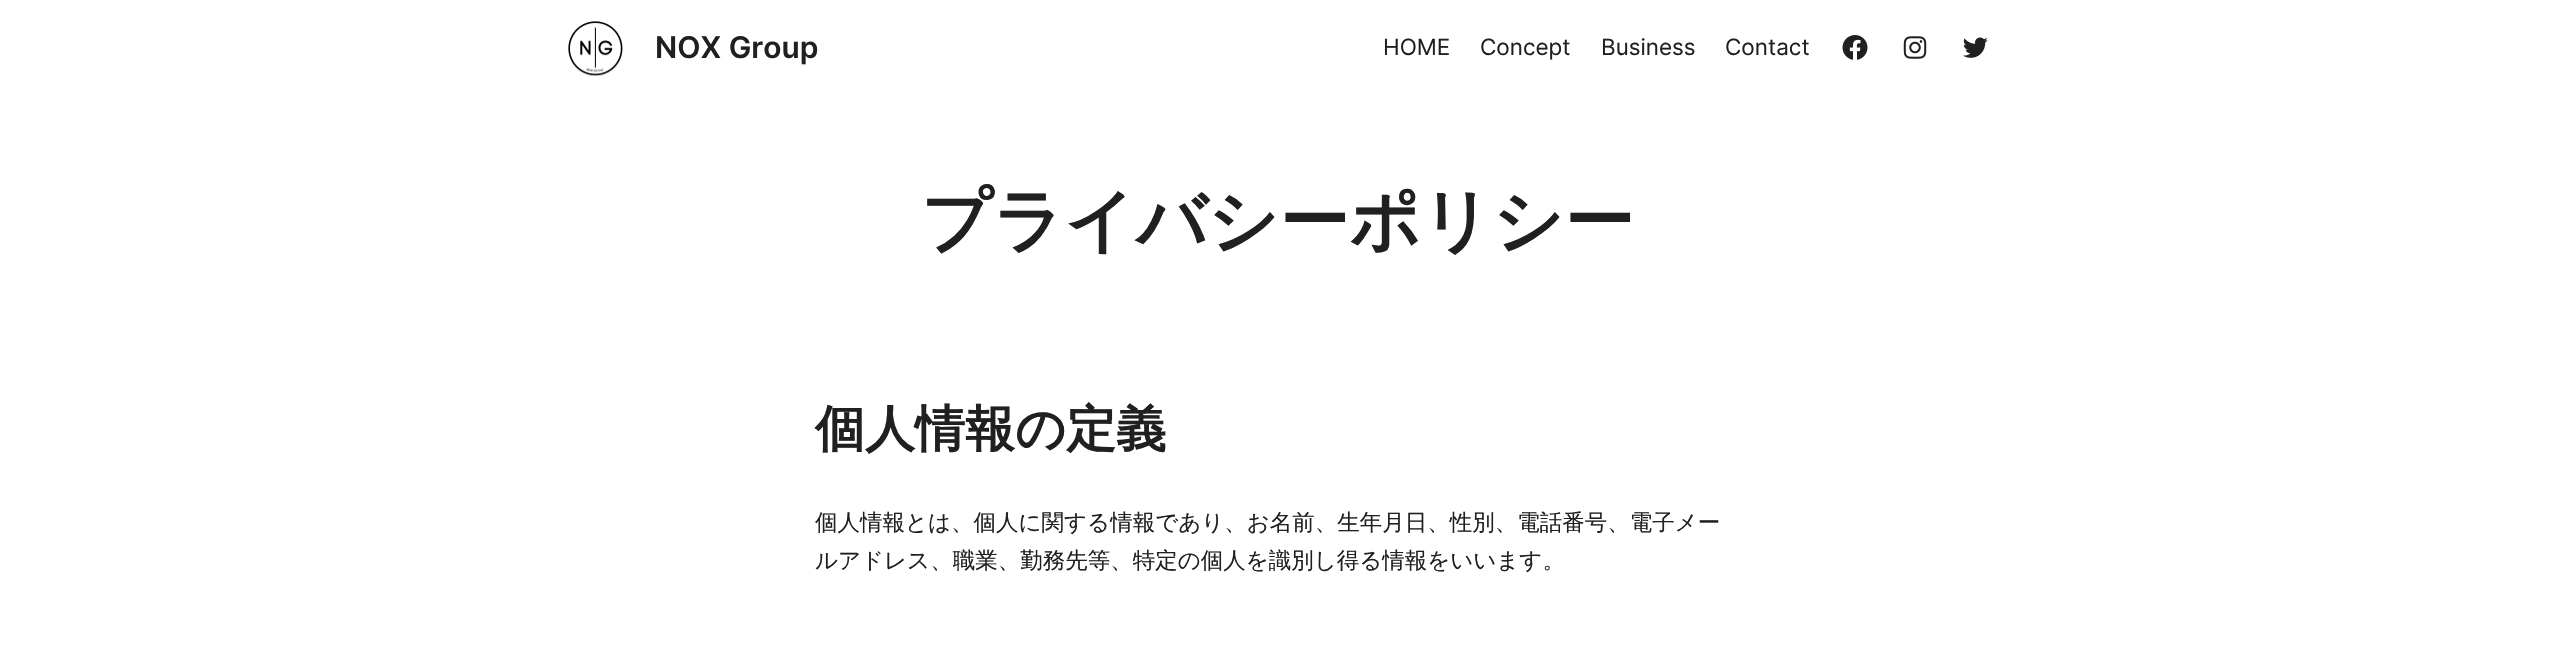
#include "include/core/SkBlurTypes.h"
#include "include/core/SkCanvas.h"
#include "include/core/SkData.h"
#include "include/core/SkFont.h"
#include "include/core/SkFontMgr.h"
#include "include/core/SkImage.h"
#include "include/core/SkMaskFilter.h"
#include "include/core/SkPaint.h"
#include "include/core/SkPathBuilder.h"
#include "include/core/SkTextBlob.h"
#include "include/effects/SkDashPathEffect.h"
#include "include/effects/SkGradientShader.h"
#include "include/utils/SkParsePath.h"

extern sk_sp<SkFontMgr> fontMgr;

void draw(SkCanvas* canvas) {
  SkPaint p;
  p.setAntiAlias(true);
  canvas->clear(SK_ColorWHITE);
  canvas->drawImageRect(SkImages::DeferredFromEncodedData(SkData::MakeFromFileName("images/1.png")), SkRect::MakeLTRB(568, 21, 623, 77), SkSamplingOptions());
  canvas->drawImageRect(SkImages::DeferredFromEncodedData(SkData::MakeFromFileName("images/2.png")), SkRect::MakeLTRB(1842, 35, 1868, 60), SkSamplingOptions());
  canvas->drawImageRect(SkImages::DeferredFromEncodedData(SkData::MakeFromFileName("images/3.png")), SkRect::MakeLTRB(1903, 36, 1927, 59), SkSamplingOptions());
  canvas->drawImageRect(SkImages::DeferredFromEncodedData(SkData::MakeFromFileName("images/4.png")), SkRect::MakeLTRB(1963, 37, 1988, 58), SkSamplingOptions());
  SkFont font1(fontMgr->matchFamilyStyle("Inter", SkFontStyle(600, SkFontStyle::kNormal_Width, SkFontStyle::kUpright_Slant)), 30);
  font1.setSubpixel(true);
  p.setColor(SkColorSetRGB(32, 32, 32));
  canvas->drawString("NOX Group", 655, 58, font1, p);
  SkFont font2(fontMgr->matchFamilyStyle("Inter", SkFontStyle::Normal()), 22.5f);
  font2.setSubpixel(true);
  canvas->drawString("HOME", 1383, 55, font2, p);
  canvas->drawString("Concept", 1480, 55, font2, p);
  canvas->drawString("Business", 1601, 55, font2, p);
  canvas->drawString("Contact", 1725, 55, font2, p);
  SkFont font3(fontMgr->matchFamilyStyle("WenQuanYi Zen Hei", SkFontStyle::Bold()), 70);
  font3.setSubpixel(true);
  canvas->drawString("プライバシーポリシー", 921, 245, font3, p);
  SkFont font4(fontMgr->matchFamilyStyle("WenQuanYi Zen Hei", SkFontStyle::Bold()), 50);
  font4.setSubpixel(true);
  canvas->drawString("個人情報の定義", 815, 446, font4, p);
  SkFont font5(fontMgr->matchFamilyStyle("WenQuanYi Zen Hei", SkFontStyle(500, SkFontStyle::kNormal_Width, SkFontStyle::kUpright_Slant)), 22.5f);
  font5.setSubpixel(true);
  canvas->drawString("個人情報とは、個人に関する情報であり、お名前、生年月日、性別、電話番号、電子メー", 815, 530, font5, p);
  canvas->drawString("ルアドレス、職業、勤務先等、特定の個人を識別し得る情報をいいます。", 815, 568, font5, p);
}
